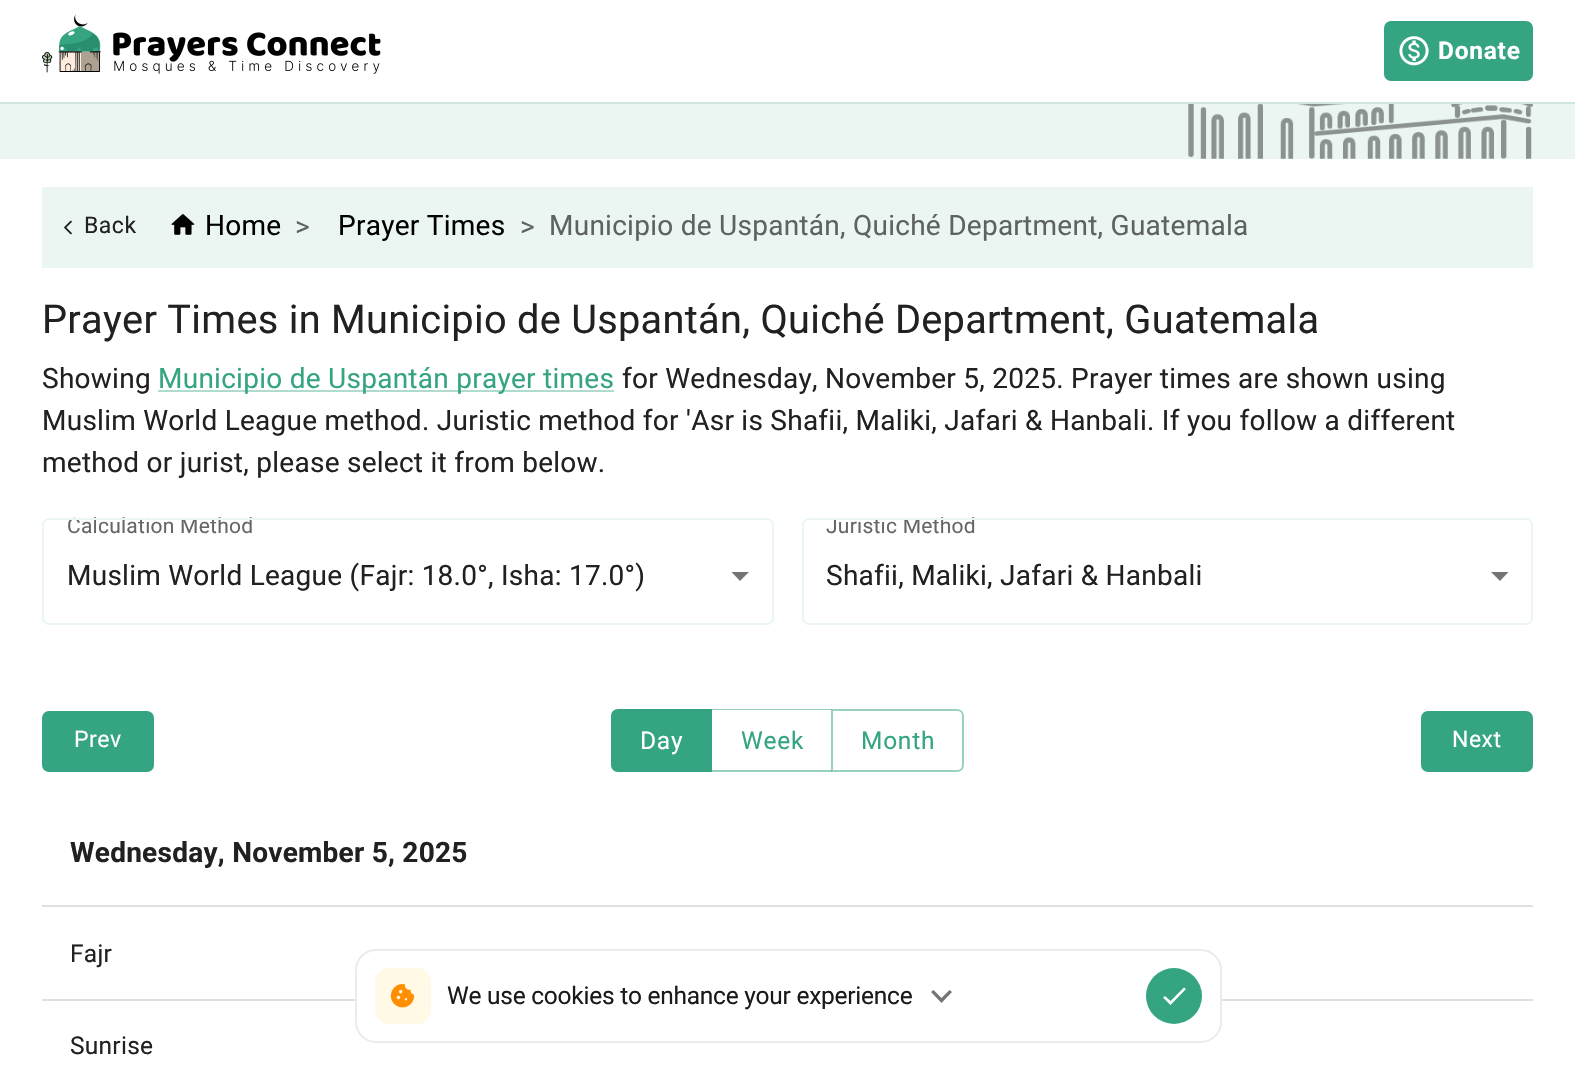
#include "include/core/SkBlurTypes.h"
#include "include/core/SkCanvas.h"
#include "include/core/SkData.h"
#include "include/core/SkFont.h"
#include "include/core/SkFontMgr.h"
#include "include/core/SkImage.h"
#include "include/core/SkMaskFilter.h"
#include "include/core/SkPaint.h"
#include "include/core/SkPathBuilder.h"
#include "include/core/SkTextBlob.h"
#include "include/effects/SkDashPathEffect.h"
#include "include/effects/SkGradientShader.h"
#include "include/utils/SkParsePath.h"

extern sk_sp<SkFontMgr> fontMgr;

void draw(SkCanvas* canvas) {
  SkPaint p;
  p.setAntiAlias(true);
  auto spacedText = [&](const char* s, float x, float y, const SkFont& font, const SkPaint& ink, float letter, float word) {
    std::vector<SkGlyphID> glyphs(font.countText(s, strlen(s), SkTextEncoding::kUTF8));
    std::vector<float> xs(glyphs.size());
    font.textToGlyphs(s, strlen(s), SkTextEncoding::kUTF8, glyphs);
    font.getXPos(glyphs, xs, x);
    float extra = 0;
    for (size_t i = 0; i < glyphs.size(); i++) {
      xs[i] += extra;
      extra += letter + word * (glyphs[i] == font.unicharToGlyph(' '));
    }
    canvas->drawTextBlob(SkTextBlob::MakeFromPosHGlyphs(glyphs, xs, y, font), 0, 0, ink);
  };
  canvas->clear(SK_ColorWHITE);
  p.setColor(SkColorSetRGB(208, 230, 224));
  canvas->drawRect(SkRect::MakeLTRB(0, 102, 1575, 104), p);
  canvas->drawImageRect(SkImages::DeferredFromEncodedData(SkData::MakeFromFileName("images/1.png")), SkRect::MakeLTRB(42, 14, 381, 74), SkSamplingOptions());
  p.setColor(SkColorSetRGB(52, 164, 130));
  canvas->drawRoundRect(SkRect::MakeLTRB(1384, 21, 1533, 81), 7, 7, p);
  canvas->drawImageRect(SkImages::DeferredFromEncodedData(SkData::MakeFromFileName("images/2.png")), SkRect::MakeLTRB(1399, 36, 1429, 66), SkSamplingOptions());
  p.setColor(SkColorSetRGB(235, 246, 243));
  canvas->drawRect(SkRect::MakeLTRB(0, 104, 1575, 159), p);
  canvas->drawImageRect(SkImages::DeferredFromEncodedData(SkData::MakeFromFileName("images/3.png")), SkRect::MakeLTRB(1188, 104, 1533, 159), SkSamplingOptions());
  canvas->drawRect(SkRect::MakeLTRB(42, 187, 1533, 268), p);
  canvas->drawImageRect(SkImages::DeferredFromEncodedData(SkData::MakeFromFileName("images/4.png")), SkRect::MakeLTRB(64, 220, 72, 235), SkSamplingOptions());
  canvas->drawImageRect(SkImages::DeferredFromEncodedData(SkData::MakeFromFileName("images/5.png")), SkRect::MakeLTRB(171, 214, 195, 235), SkSamplingOptions());
  p.setColor(SkColorSetRGB(174, 219, 205));
  canvas->drawRect(SkRect::MakeLTRB(158, 390, 614, 392), p);
  p.setColor(SkColorSetRGB(117, 117, 117));
  canvas->drawPath(SkPathBuilder().moveTo(731.5f, 572).lineTo(740, 581).lineTo(749, 572).close().detach(), p);
  canvas->drawPath(SkPathBuilder().moveTo(1491, 572).lineTo(1500, 581).lineTo(1508.5f, 572).close().detach(), p);
  p.setColor(SkColorSetRGB(52, 164, 130));
  canvas->drawRoundRect(SkRect::MakeLTRB(42, 711, 154, 772), 7, 7, p);
  canvas->drawPath(SkPathBuilder().moveTo(618, 709).lineTo(712, 709).lineTo(712, 772).lineTo(618, 772).cubicTo(614, 772, 611, 769, 611, 765).lineTo(611, 716).cubicTo(611, 712, 614, 709, 618, 709).close().detach(), p);
  p.setColor(SkColorSetARGB(128, 52, 164, 130));
  canvas->drawPath(SkPathBuilder().moveTo(710, 709).lineTo(833, 709).lineTo(831, 710).lineTo(712, 710).close().detach(), p);
  canvas->drawPath(SkPathBuilder().moveTo(833, 772).lineTo(710, 772).lineTo(712, 770).lineTo(831, 770).close().detach(), p);
  p.setStyle(SkPaint::kStroke_Style);
  p.setStrokeWidth(2);
  canvas->drawPath(SkPathBuilder().moveTo(832, 710).lineTo(957, 710).cubicTo(960.5f, 710, 963, 712.5f, 963, 716).lineTo(963, 765).cubicTo(963, 768.5f, 960.5f, 771, 957, 771).lineTo(832, 771).close().detach(), p);
  p.setStyle(SkPaint::kFill_Style);
  p.setColor(SkColorSetRGB(52, 164, 130));
  canvas->drawRoundRect(SkRect::MakeLTRB(1421, 711, 1533, 772), 7, 7, p);
  p.setColor(SkColorSetRGB(224, 224, 224));
  canvas->drawRect(SkRect::MakeLTRB(42, 905, 1533, 907), p);
  canvas->drawRect(SkRect::MakeLTRB(42, 999, 1533, 1001), p);
  p.setColor(SkColorSetARGB(242, 255, 255, 255));
  canvas->drawRoundRect(SkRect::MakeLTRB(355, 949, 1222, 1043), 21, 21, p);
  p.setStyle(SkPaint::kStroke_Style);
  p.setColor(SkColorSetARGB(20, 0, 0, 0));
  canvas->drawRoundRect(SkRect::MakeLTRB(356, 950, 1221, 1042), 20, 20, p);
  p.setStyle(SkPaint::kFill_Style);
  p.setColor(SkColorSetRGB(255, 249, 230));
  canvas->drawRoundRect(SkRect::MakeLTRB(375, 968, 431, 1024), 14, 14, p);
  canvas->drawImageRect(SkImages::DeferredFromEncodedData(SkData::MakeFromFileName("images/6.png")), SkRect::MakeLTRB(390, 984, 415, 1008), SkSamplingOptions());
  p.setColor(SkColorSetRGB(117, 117, 117));
  canvas->drawPath(SkPathBuilder().moveTo(949.5f, 990).lineTo(941.5f, 998).lineTo(933.5f, 990).lineTo(931, 992).lineTo(941.5f, 1003).lineTo(952, 992).close().detach(), p);
  p.setColor(SkColorSetRGB(52, 164, 130));
  canvas->drawCircle(1174, 996, 28, p);
  p.setColor(SK_ColorWHITE);
  canvas->drawPath(SkPathBuilder().moveTo(1170.5f, 1001).lineTo(1165, 996).lineTo(1163, 997.5f).lineTo(1170.5f, 1005).lineTo(1186, 989).lineTo(1184, 987.5f).close().detach(), p);
  SkFont font1(fontMgr->matchFamilyStyle("Roboto", SkFontStyle::Bold()), 24.5f);
  font1.setSubpixel(true);
  spacedText("Donate", 1438, 59, font1, p, 0.75f, 0);
  SkFont font2(fontMgr->matchFamilyStyle("Roboto", SkFontStyle::Normal()), 23);
  font2.setSubpixel(true);
  p.setColor(SkColorSetRGB(33, 33, 33));
  spacedText("Back", 84, 233, font2, p, 0.5f, 0);
  SkFont font3(fontMgr->matchFamilyStyle("Roboto", SkFontStyle::Normal()), 28);
  font3.setSubpixel(true);
  p.setColor(SK_ColorBLACK);
  spacedText("Home", 205, 235, font3, p, 0.26f, 0);
  p.setColor(SkColorSetRGB(94, 98, 97));
  spacedText(">", 295, 236, font3, p, 0.26f, 0);
  p.setColor(SK_ColorBLACK);
  spacedText("Prayer Times", 338, 235, font3, p, 0.26f, 0);
  p.setColor(SkColorSetRGB(94, 98, 97));
  spacedText(">", 520, 236, font3, p, 0.26f, 0);
  spacedText("Municipio de Uspantán, Quiché Department, Guatemala", 549, 235, font3, p, 0.26f, 0);
  SkFont font4(fontMgr->matchFamilyStyle("Roboto", SkFontStyle::Normal()), 39.7f);
  font4.setSubpixel(true);
  p.setColor(SkColorSetRGB(33, 33, 33));
  spacedText("Prayer Times in Municipio de Uspantán, Quiché Department, Guatemala", 42, 333, font4, p, 0.3f, 0);
  spacedText("Showing", 42, 388, font3, p, 0.26f, 0);
  p.setColor(SkColorSetRGB(52, 164, 130));
  spacedText("Municipio de Uspantán prayer times", 158, 388, font3, p, 0.26f, 0);
  p.setColor(SkColorSetRGB(33, 33, 33));
  spacedText("for Wednesday, November 5, 2025. Prayer times are shown using", 622, 388, font3, p, 0.26f, 0);
  spacedText("Muslim World League method. Juristic method for 'Asr is Shafii, Maliki, Jafari & Hanbali. If you follow a different", 42, 430, font3, p, 0.26f, 0);
  spacedText("method or jurist, please select it from below.", 42, 472, font3, p, 0.26f, 0);
  SkFont font5(fontMgr->matchFamilyStyle("Roboto", SkFontStyle::Normal()), 21);
  font5.setSubpixel(true);
  p.setColor(SkColorSetRGB(102, 102, 102));
  spacedText("Calculation Method", 67, 533, font5, p, 0.25f, 0);
  p.setStyle(SkPaint::kStroke_Style);
  p.setColor(SkColorSetRGB(235, 246, 243));
  canvas->drawRoundRect(SkRect::MakeLTRB(43, 519, 773, 624), 6, 6, p);
  p.setStyle(SkPaint::kFill_Style);
  p.setColor(SkColorSetRGB(33, 33, 33));
  spacedText("Muslim World League (Fajr: 18.0°, Isha: 17.0°)", 67, 585, font3, p, 0.26f, 0);
  p.setColor(SkColorSetRGB(102, 102, 102));
  spacedText("Juristic Method", 826, 533, font5, p, 0.25f, 0);
  p.setStyle(SkPaint::kStroke_Style);
  p.setColor(SkColorSetRGB(235, 246, 243));
  canvas->drawRoundRect(SkRect::MakeLTRB(803, 519, 1532, 624), 6, 6, p);
  p.setStyle(SkPaint::kFill_Style);
  p.setColor(SkColorSetRGB(33, 33, 33));
  spacedText("Shafii, Maliki, Jafari & Hanbali", 826, 585, font3, p, 0.26f, 0);
  p.setColor(SK_ColorWHITE);
  spacedText("Prev", 74, 747, font2, p, 0.5f, 0);
  SkFont font6(fontMgr->matchFamilyStyle("Roboto", SkFontStyle::Normal()), 24.5f);
  font6.setSubpixel(true);
  spacedText("Day", 640, 749, font6, p, 0.75f, 0);
  p.setColor(SkColorSetRGB(52, 164, 130));
  spacedText("Week", 741, 749, font6, p, 0.75f, 0);
  spacedText("Month", 861, 749, font6, p, 0.75f, 0);
  p.setColor(SK_ColorWHITE);
  spacedText("Next", 1452, 747, font2, p, 0.5f, 0);
  SkFont font7(fontMgr->matchFamilyStyle("Roboto", SkFontStyle::Bold()), 28);
  font7.setSubpixel(true);
  p.setColor(SkColorSetRGB(33, 33, 33));
  spacedText("Wednesday, November 5, 2025", 70, 862, font7, p, 0.26f, 0);
  spacedText("Fajr", 70, 962, font6, p, 0.26f, 0);
  spacedText("Sunrise", 70, 1054, font6, p, 0.26f, 0);
  p.setColor(SkColorSetRGB(26, 26, 26));
  spacedText("We use cookies to enhance your experience", 447, 1004, font6, p, -0.25f, 0);
}
